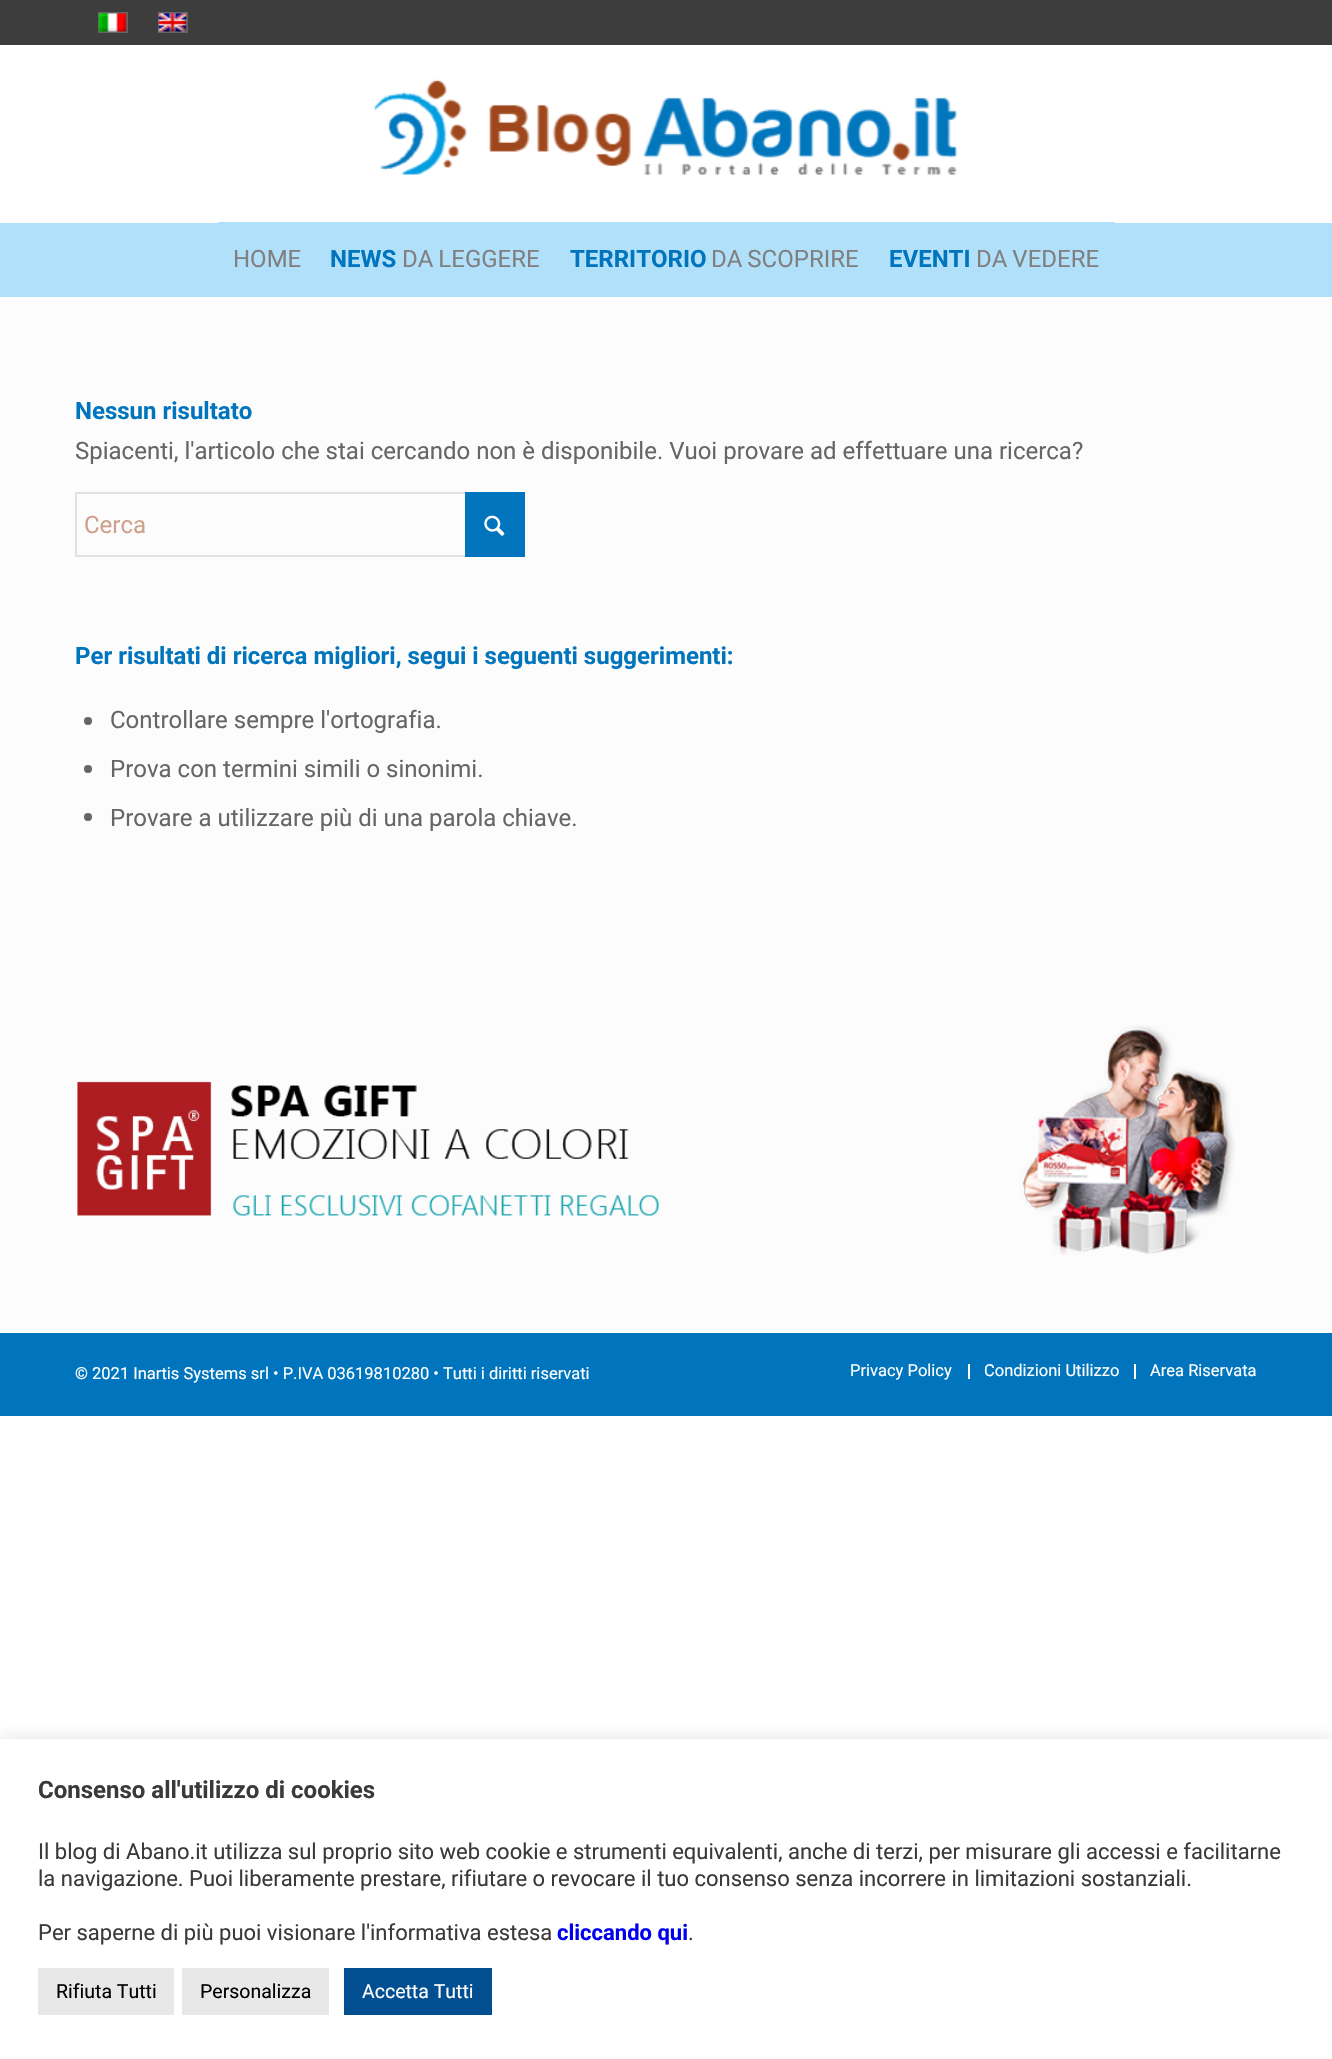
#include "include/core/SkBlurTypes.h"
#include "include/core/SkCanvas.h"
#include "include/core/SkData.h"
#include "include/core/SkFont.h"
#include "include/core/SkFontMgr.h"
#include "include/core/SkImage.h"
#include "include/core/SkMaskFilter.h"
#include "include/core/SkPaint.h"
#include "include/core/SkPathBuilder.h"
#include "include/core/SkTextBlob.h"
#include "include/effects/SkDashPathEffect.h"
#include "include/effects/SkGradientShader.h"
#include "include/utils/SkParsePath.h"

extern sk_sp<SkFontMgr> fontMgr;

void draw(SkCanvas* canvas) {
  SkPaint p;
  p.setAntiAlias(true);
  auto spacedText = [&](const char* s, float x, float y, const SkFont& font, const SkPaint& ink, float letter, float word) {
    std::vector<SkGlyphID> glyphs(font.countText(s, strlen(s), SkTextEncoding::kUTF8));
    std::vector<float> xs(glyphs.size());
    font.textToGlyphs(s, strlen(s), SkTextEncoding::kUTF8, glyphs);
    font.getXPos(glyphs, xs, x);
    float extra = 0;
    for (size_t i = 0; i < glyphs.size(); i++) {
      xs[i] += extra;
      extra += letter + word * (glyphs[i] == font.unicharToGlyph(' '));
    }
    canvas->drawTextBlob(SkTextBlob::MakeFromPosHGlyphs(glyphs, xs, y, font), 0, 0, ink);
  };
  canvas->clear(SK_ColorWHITE);
  p.setColor(SkColorSetRGB(61, 61, 61));
  canvas->drawRect(SkRect::MakeLTRB(0, 0, 1332, 45), p);
  p.setStyle(SkPaint::kStroke_Style);
  p.setStrokeWidth(2);
  p.setColor(SkColorSetRGB(100, 100, 100));
  canvas->drawRect(SkRect::MakeLTRB(99, 13, 127, 32), p);
  canvas->drawImageRect(SkImages::DeferredFromEncodedData(SkData::MakeFromFileName("images/1.png")), SkRect::MakeLTRB(98, 13, 127, 32), SkSamplingOptions());
  canvas->drawRect(SkRect::MakeLTRB(159, 13, 187, 32), p);
  canvas->drawImageRect(SkImages::DeferredFromEncodedData(SkData::MakeFromFileName("images/2.png")), SkRect::MakeLTRB(158, 13, 187, 32), SkSamplingOptions());
  canvas->drawImageRect(SkImages::DeferredFromEncodedData(SkData::MakeFromFileName("images/3.png")), SkRect::MakeLTRB(374, 79, 957, 176), SkSamplingOptions());
  p.setStyle(SkPaint::kFill_Style);
  p.setColor(SkColorSetRGB(177, 225, 250));
  canvas->drawRect(SkRect::MakeLTRB(0, 223, 1332, 297), p);
  canvas->drawRect(SkRect::MakeLTRB(218, 222, 1115, 223), p);
  p.setColor(SkColorSetRGB(252, 252, 252));
  canvas->drawRect(SkRect::MakeLTRB(0, 299, 1332, 1331), p);
  p.setStyle(SkPaint::kStroke_Style);
  p.setColor(SkColorSetRGB(225, 225, 225));
  canvas->drawRect(SkRect::MakeLTRB(76, 493, 524, 556), p);
  p.setStyle(SkPaint::kFill_Style);
  p.setColor(SkColorSetRGB(0, 117, 189));
  canvas->drawRect(SkRect::MakeLTRB(465, 492, 525, 557), p);
  canvas->drawImageRect(SkImages::DeferredFromEncodedData(SkData::MakeFromFileName("images/4.png")), SkRect::MakeLTRB(484, 515, 505, 536), SkSamplingOptions());
  p.setColor(SkColorSetRGB(102, 102, 102));
  canvas->drawCircle(88, 721, 4, p);
  canvas->drawCircle(88, 769, 4, p);
  canvas->drawCircle(88, 817, 4, p);
  canvas->drawImageRect(SkImages::DeferredFromEncodedData(SkData::MakeFromFileName("images/5.png")), SkRect::MakeLTRB(77, 1025, 1235, 1255), SkSamplingOptions());
  p.setColor(SkColorSetRGB(0, 117, 189));
  canvas->drawRect(SkRect::MakeLTRB(0, 1333, 1332, 1416), p);
  p.setColor(SK_ColorWHITE);
  canvas->drawRect(SkRect::MakeLTRB(968, 1364, 970, 1379), p);
  canvas->drawRect(SkRect::MakeLTRB(1134, 1364, 1136, 1379), p);
  canvas->save();
  canvas->clipRect(SkRect::MakeLTRB(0, 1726, 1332, 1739));
  p.setColor(SkColorSetARGB(77, 172, 171, 171));
  p.setMaskFilter(SkMaskFilter::MakeBlur(kNormal_SkBlurStyle, 7.5f));
  canvas->drawRect(SkRect::MakeLTRB(0, 1737, 1332, 2058), p);
  p.setMaskFilter(nullptr);
  canvas->restore();
  p.setColor(SkColorSetRGB(232, 232, 232));
  canvas->drawRect(SkRect::MakeLTRB(38, 1968, 174, 2015), p);
  canvas->drawRect(SkRect::MakeLTRB(182, 1968, 329, 2015), p);
  p.setColor(SkColorSetRGB(1, 78, 145));
  canvas->drawRect(SkRect::MakeLTRB(344, 1968, 492, 2015), p);
  SkFont font1(fontMgr->matchFamilyStyle("Roboto", SkFontStyle::Normal()), 24);
  font1.setSubpixel(true);
  p.setColor(SkColorSetRGB(128, 128, 128));
  canvas->drawString("HOME", 233, 267, font1, p);
  SkFont font2(fontMgr->matchFamilyStyle("Roboto", SkFontStyle::Bold()), 24);
  font2.setSubpixel(true);
  p.setColor(SkColorSetRGB(0, 117, 189));
  canvas->drawString("NEWS", 330, 267, font2, p);
  p.setColor(SkColorSetRGB(128, 128, 128));
  spacedText("DA LEGGERE", 402, 267, font1, p, 0, -1);
  p.setColor(SkColorSetRGB(0, 117, 189));
  canvas->drawString("TERRITORIO", 570, 267, font2, p);
  p.setColor(SkColorSetRGB(128, 128, 128));
  spacedText("DA SCOPRIRE", 711, 267, font1, p, 0, -1);
  p.setColor(SkColorSetRGB(0, 117, 189));
  canvas->drawString("EVENTI", 889, 267, font2, p);
  p.setColor(SkColorSetRGB(128, 128, 128));
  spacedText("DA VEDERE", 976, 267, font1, p, 0, -1);
  p.setColor(SkColorSetRGB(0, 117, 189));
  canvas->drawString("Nessun risultato", 75, 419, font2, p);
  p.setColor(SkColorSetRGB(102, 102, 102));
  canvas->drawString("Spiacenti, l'articolo che stai cercando non è disponibile. Vuoi provare ad effettuare una ricerca?", 75, 459, font1, p);
  p.setColor(SkColorSetRGB(206, 161, 140));
  canvas->drawString("Cerca", 84, 533, font1, p);
  p.setColor(SkColorSetRGB(0, 117, 189));
  canvas->drawString("Per risultati di ricerca migliori, segui i seguenti suggerimenti:", 75, 664, font2, p);
  p.setColor(SkColorSetRGB(102, 102, 102));
  canvas->drawString("Controllare sempre l'ortografia.", 110, 728, font1, p);
  canvas->drawString("Prova con termini simili o sinonimi.", 110, 777, font1, p);
  canvas->drawString("Provare a utilizzare più di una parola chiave.", 110, 826, font1, p);
  SkFont font3(fontMgr->matchFamilyStyle("Roboto", SkFontStyle::Normal()), 16.5f);
  font3.setSubpixel(true);
  p.setColor(SK_ColorWHITE);
  canvas->drawString("© 2021 Inartis Systems srl • P.IVA 03619810280 • Tutti i diritti riservati", 75, 1379, font3, p);
  canvas->drawString("Privacy Policy", 850, 1376, font3, p);
  canvas->drawString("Condizioni Utilizzo", 984, 1376, font3, p);
  canvas->drawString("Area Riservata", 1150, 1376, font3, p);
  p.setColor(SkColorSetRGB(58, 58, 58));
  canvas->drawString("Consenso all'utilizzo di cookies", 38, 1798, font2, p);
  SkFont font4(fontMgr->matchFamilyStyle("Roboto", SkFontStyle::Normal()), 22);
  font4.setSubpixel(true);
  canvas->drawString("Il blog di Abano.it utilizza sul proprio sito web cookie e strumenti equivalenti, anche di terzi, per misurare gli accessi e facilitarne", 38, 1859, font4, p);
  canvas->drawString("la navigazione. Puoi liberamente prestare, rifiutare o revocare il tuo consenso senza incorrere in limitazioni sostanziali.", 38, 1886, font4, p);
  canvas->drawString("Per saperne di più puoi visionare l'informativa estesa", 38, 1940, font4, p);
  SkFont font5(fontMgr->matchFamilyStyle("Roboto", SkFontStyle::Bold()), 22);
  font5.setSubpixel(true);
  p.setColor(SkColorSetRGB(0, 0, 238));
  canvas->drawString("cliccando qui", 557, 1940, font5, p);
  p.setColor(SkColorSetRGB(58, 58, 58));
  canvas->drawString(".", 688, 1940, font4, p);
  SkFont font6(fontMgr->matchFamilyStyle("Roboto", SkFontStyle::Normal()), 19.5f);
  font6.setSubpixel(true);
  p.setColor(SK_ColorBLACK);
  canvas->drawString("Rifiuta Tutti", 56, 1998, font6, p);
  canvas->drawString("Personalizza", 200, 1998, font6, p);
  p.setColor(SK_ColorWHITE);
  canvas->drawString("Accetta Tutti", 362, 1998, font6, p);
}
